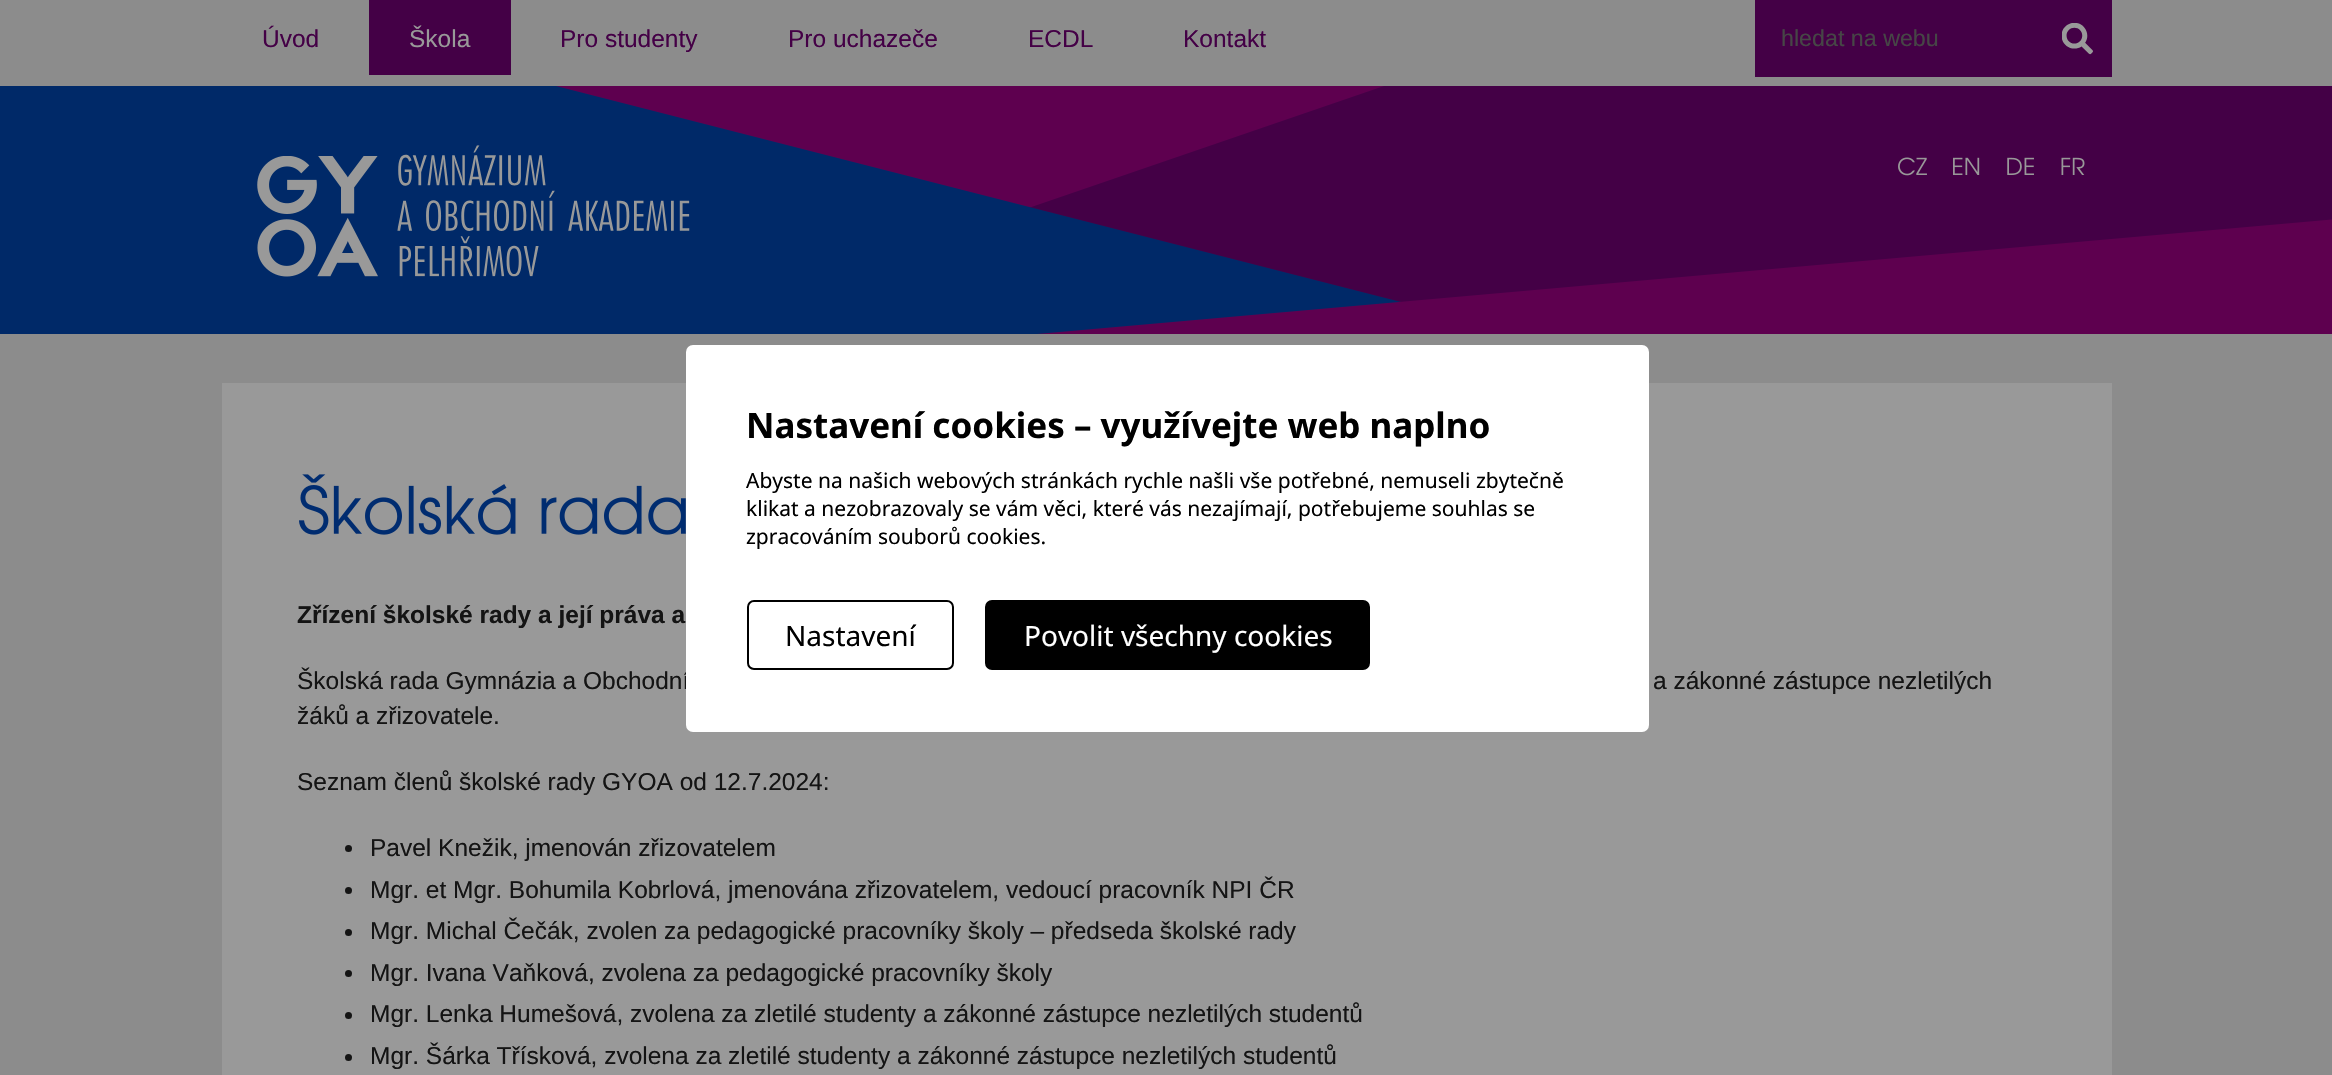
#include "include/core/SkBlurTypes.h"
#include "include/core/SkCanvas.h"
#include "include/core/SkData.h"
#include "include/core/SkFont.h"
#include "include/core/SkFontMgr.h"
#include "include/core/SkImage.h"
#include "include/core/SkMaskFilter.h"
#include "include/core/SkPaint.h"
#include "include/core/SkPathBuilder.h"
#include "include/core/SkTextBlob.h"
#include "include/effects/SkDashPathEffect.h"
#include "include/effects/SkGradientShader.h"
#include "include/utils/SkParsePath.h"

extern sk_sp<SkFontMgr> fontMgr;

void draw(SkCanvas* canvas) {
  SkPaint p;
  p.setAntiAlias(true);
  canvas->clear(SkColorSetRGB(140, 140, 140));
  p.setColor(SkColorSetRGB(68, 0, 70));
  canvas->drawRect(SkRect::MakeLTRB(369, 0, 511, 75), p);
  canvas->drawRect(SkRect::MakeLTRB(1755, 0, 2112, 77), p);
  canvas->drawImageRect(SkImages::DeferredFromEncodedData(SkData::MakeFromFileName("images/1.png")), SkRect::MakeLTRB(2062, 23, 2093, 55), SkSamplingOptions());
  p.setColor(SkColorSetRGB(94, 0, 79));
  canvas->drawRect(SkRect::MakeLTRB(556, 86, 1384, 208), p);
  p.setColor(SkColorSetRGB(68, 0, 70));
  canvas->drawPath(SkPathBuilder(SkPathFillType::kEvenOdd).moveTo(1384, 86).lineTo(874, 261).lineTo(1209, 334).lineTo(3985, 334).lineTo(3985, 86).close().detach(), p);
  p.setColor(SkColorSetRGB(0, 41, 104));
  canvas->drawPath(SkPathBuilder(SkPathFillType::kEvenOdd).moveTo(556, 86).lineTo(1401, 302).lineTo(1401, 334).lineTo(-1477, 334).lineTo(-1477, 86).close().detach(), p);
  p.setColor(SkColorSetRGB(94, 0, 79));
  canvas->drawPath(SkPathBuilder(SkPathFillType::kEvenOdd).moveTo(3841, 86).lineTo(1037, 334).lineTo(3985, 334).lineTo(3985, 86).close().detach(), p);
  canvas->drawImageRect(SkImages::DeferredFromEncodedData(SkData::MakeFromFileName("images/2.png")), SkRect::MakeLTRB(257, 156, 378, 277), SkSamplingOptions());
  canvas->drawImageRect(SkImages::DeferredFromEncodedData(SkData::MakeFromFileName("images/3.png")), SkRect::MakeLTRB(397, 145, 690, 277), SkSamplingOptions());
  canvas->drawImageRect(SkImages::DeferredFromEncodedData(SkData::MakeFromFileName("images/4.png")), SkRect::MakeLTRB(1898, 157, 1927, 176), SkSamplingOptions());
  canvas->drawImageRect(SkImages::DeferredFromEncodedData(SkData::MakeFromFileName("images/5.png")), SkRect::MakeLTRB(1953, 157, 1980, 175), SkSamplingOptions());
  canvas->drawImageRect(SkImages::DeferredFromEncodedData(SkData::MakeFromFileName("images/6.png")), SkRect::MakeLTRB(2007, 157, 2034, 175), SkSamplingOptions());
  canvas->drawImageRect(SkImages::DeferredFromEncodedData(SkData::MakeFromFileName("images/7.png")), SkRect::MakeLTRB(2061, 157, 2085, 175), SkSamplingOptions());
  p.setColor(SkColorSetRGB(153, 153, 153));
  canvas->drawRect(SkRect::MakeLTRB(222, 383, 2112, 1075), p);
  canvas->drawImageRect(SkImages::DeferredFromEncodedData(SkData::MakeFromFileName("images/8.png")), SkRect::MakeLTRB(299, 474, 686, 535), SkSamplingOptions());
  p.setColor(SkColorSetRGB(20, 20, 20));
  canvas->drawCircle(348.5f, 848.5f, 3.5f, p);
  canvas->drawCircle(348.5f, 890.5f, 3.5f, p);
  canvas->drawCircle(348.5f, 932.5f, 3.5f, p);
  canvas->drawCircle(348.5f, 973.5f, 3.5f, p);
  canvas->drawCircle(348.5f, 1015.5f, 3.5f, p);
  canvas->drawCircle(348.5f, 1057.5f, 3.5f, p);
  SkFont font1(fontMgr->matchFamilyStyle("Liberation Sans", SkFontStyle::Normal()), 24.5f);
  font1.setSubpixel(true);
  p.setColor(SkColorSetRGB(68, 0, 70));
  canvas->drawString("Úvod", 262, 47, font1, p);
  p.setColor(SkColorSetRGB(153, 153, 153));
  canvas->drawString("Škola", 409, 47, font1, p);
  p.setColor(SkColorSetRGB(68, 0, 70));
  canvas->drawString("Pro studenty", 560, 47, font1, p);
  canvas->drawString("Pro uchazeče", 788, 47, font1, p);
  canvas->drawString("ECDL", 1028, 47, font1, p);
  canvas->drawString("Kontakt", 1183, 47, font1, p);
  SkFont font2(fontMgr->matchFamilyStyle("Liberation Sans", SkFontStyle::Normal()), 23.25f);
  font2.setSubpixel(true);
  p.setColor(SkColorSetRGB(70, 70, 70));
  canvas->drawString("hledat na webu", 1781, 46, font2, p);
  SkFont font3(fontMgr->matchFamilyStyle("Liberation Sans", SkFontStyle::Bold()), 24.5f);
  font3.setSubpixel(true);
  p.setColor(SkColorSetRGB(20, 20, 20));
  canvas->drawString("Zřízení školské rady a její práva a", 297, 623, font3, p);
  canvas->drawString("Školská rada Gymnázia a Obchodní", 297, 689, font1, p);
  p.setColor(SK_ColorWHITE);
  canvas->drawRoundRect(SkRect::MakeLTRB(686, 345, 1649, 732), 7, 7, p);
  p.setColor(SK_ColorBLACK);
  canvas->drawRoundRect(SkRect::MakeLTRB(986, 601, 1369, 669), 6, 6, p);
  p.setStyle(SkPaint::kStroke_Style);
  p.setStrokeWidth(2);
  canvas->drawRoundRect(SkRect::MakeLTRB(986, 601, 1369, 669), 6, 6, p);
  SkFont font4(fontMgr->matchFamilyStyle("Noto Sans", SkFontStyle::Normal()), 28);
  font4.setSubpixel(true);
  p.setStyle(SkPaint::kFill_Style);
  p.setColor(SK_ColorWHITE);
  canvas->drawString("Povolit všechny cookies", 1024, 646, font4, p);
  p.setStyle(SkPaint::kStroke_Style);
  p.setColor(SK_ColorBLACK);
  canvas->drawRoundRect(SkRect::MakeLTRB(748, 601, 953, 669), 6, 6, p);
  p.setStyle(SkPaint::kFill_Style);
  canvas->drawString("Nastavení", 785, 646, font4, p);
  SkFont font5(fontMgr->matchFamilyStyle("Noto Sans", SkFontStyle::Normal()), 21);
  font5.setSubpixel(true);
  canvas->drawString("zpracováním souborů cookies.", 746, 544, font5, p);
  canvas->drawString("klikat a nezobrazovaly se vám věci, které vás nezajímají, potřebujeme souhlas se", 746, 516, font5, p);
  canvas->drawString("Abyste na našich webových stránkách rychle našli vše potřebné, nemuseli zbytečně", 746, 488, font5, p);
  SkFont font6(fontMgr->matchFamilyStyle("Noto Sans", SkFontStyle::Bold()), 35);
  font6.setSubpixel(true);
  canvas->drawString("Nastavení cookies – využívejte web naplno", 746, 438, font6, p);
  p.setColor(SkColorSetRGB(20, 20, 20));
  canvas->drawString("a zákonné zástupce nezletilých", 1653, 689, font1, p);
  canvas->drawString("žáků a zřizovatele.", 297, 724, font1, p);
  canvas->drawString("Seznam členů školské rady GYOA od 12.7.2024:", 297, 790, font1, p);
  canvas->drawString("Pavel Knežik, jmenován zřizovatelem", 370, 856, font1, p);
  canvas->drawString("Mgr. et Mgr. Bohumila Kobrlová, jmenována zřizovatelem, vedoucí pracovník NPI ČR", 370, 898, font1, p);
  canvas->drawString("Mgr. Michal Čečák, zvolen za pedagogické pracovníky školy – předseda školské rady", 370, 939, font1, p);
  canvas->drawString("Mgr. Ivana Vaňková, zvolena za pedagogické pracovníky školy", 370, 981, font1, p);
  canvas->drawString("Mgr. Lenka Humešová, zvolena za zletilé studenty a zákonné zástupce nezletilých studentů", 370, 1022, font1, p);
  canvas->drawString("Mgr. Šárka Třísková, zvolena za zletilé studenty a zákonné zástupce nezletilých studentů", 370, 1064, font1, p);
}
